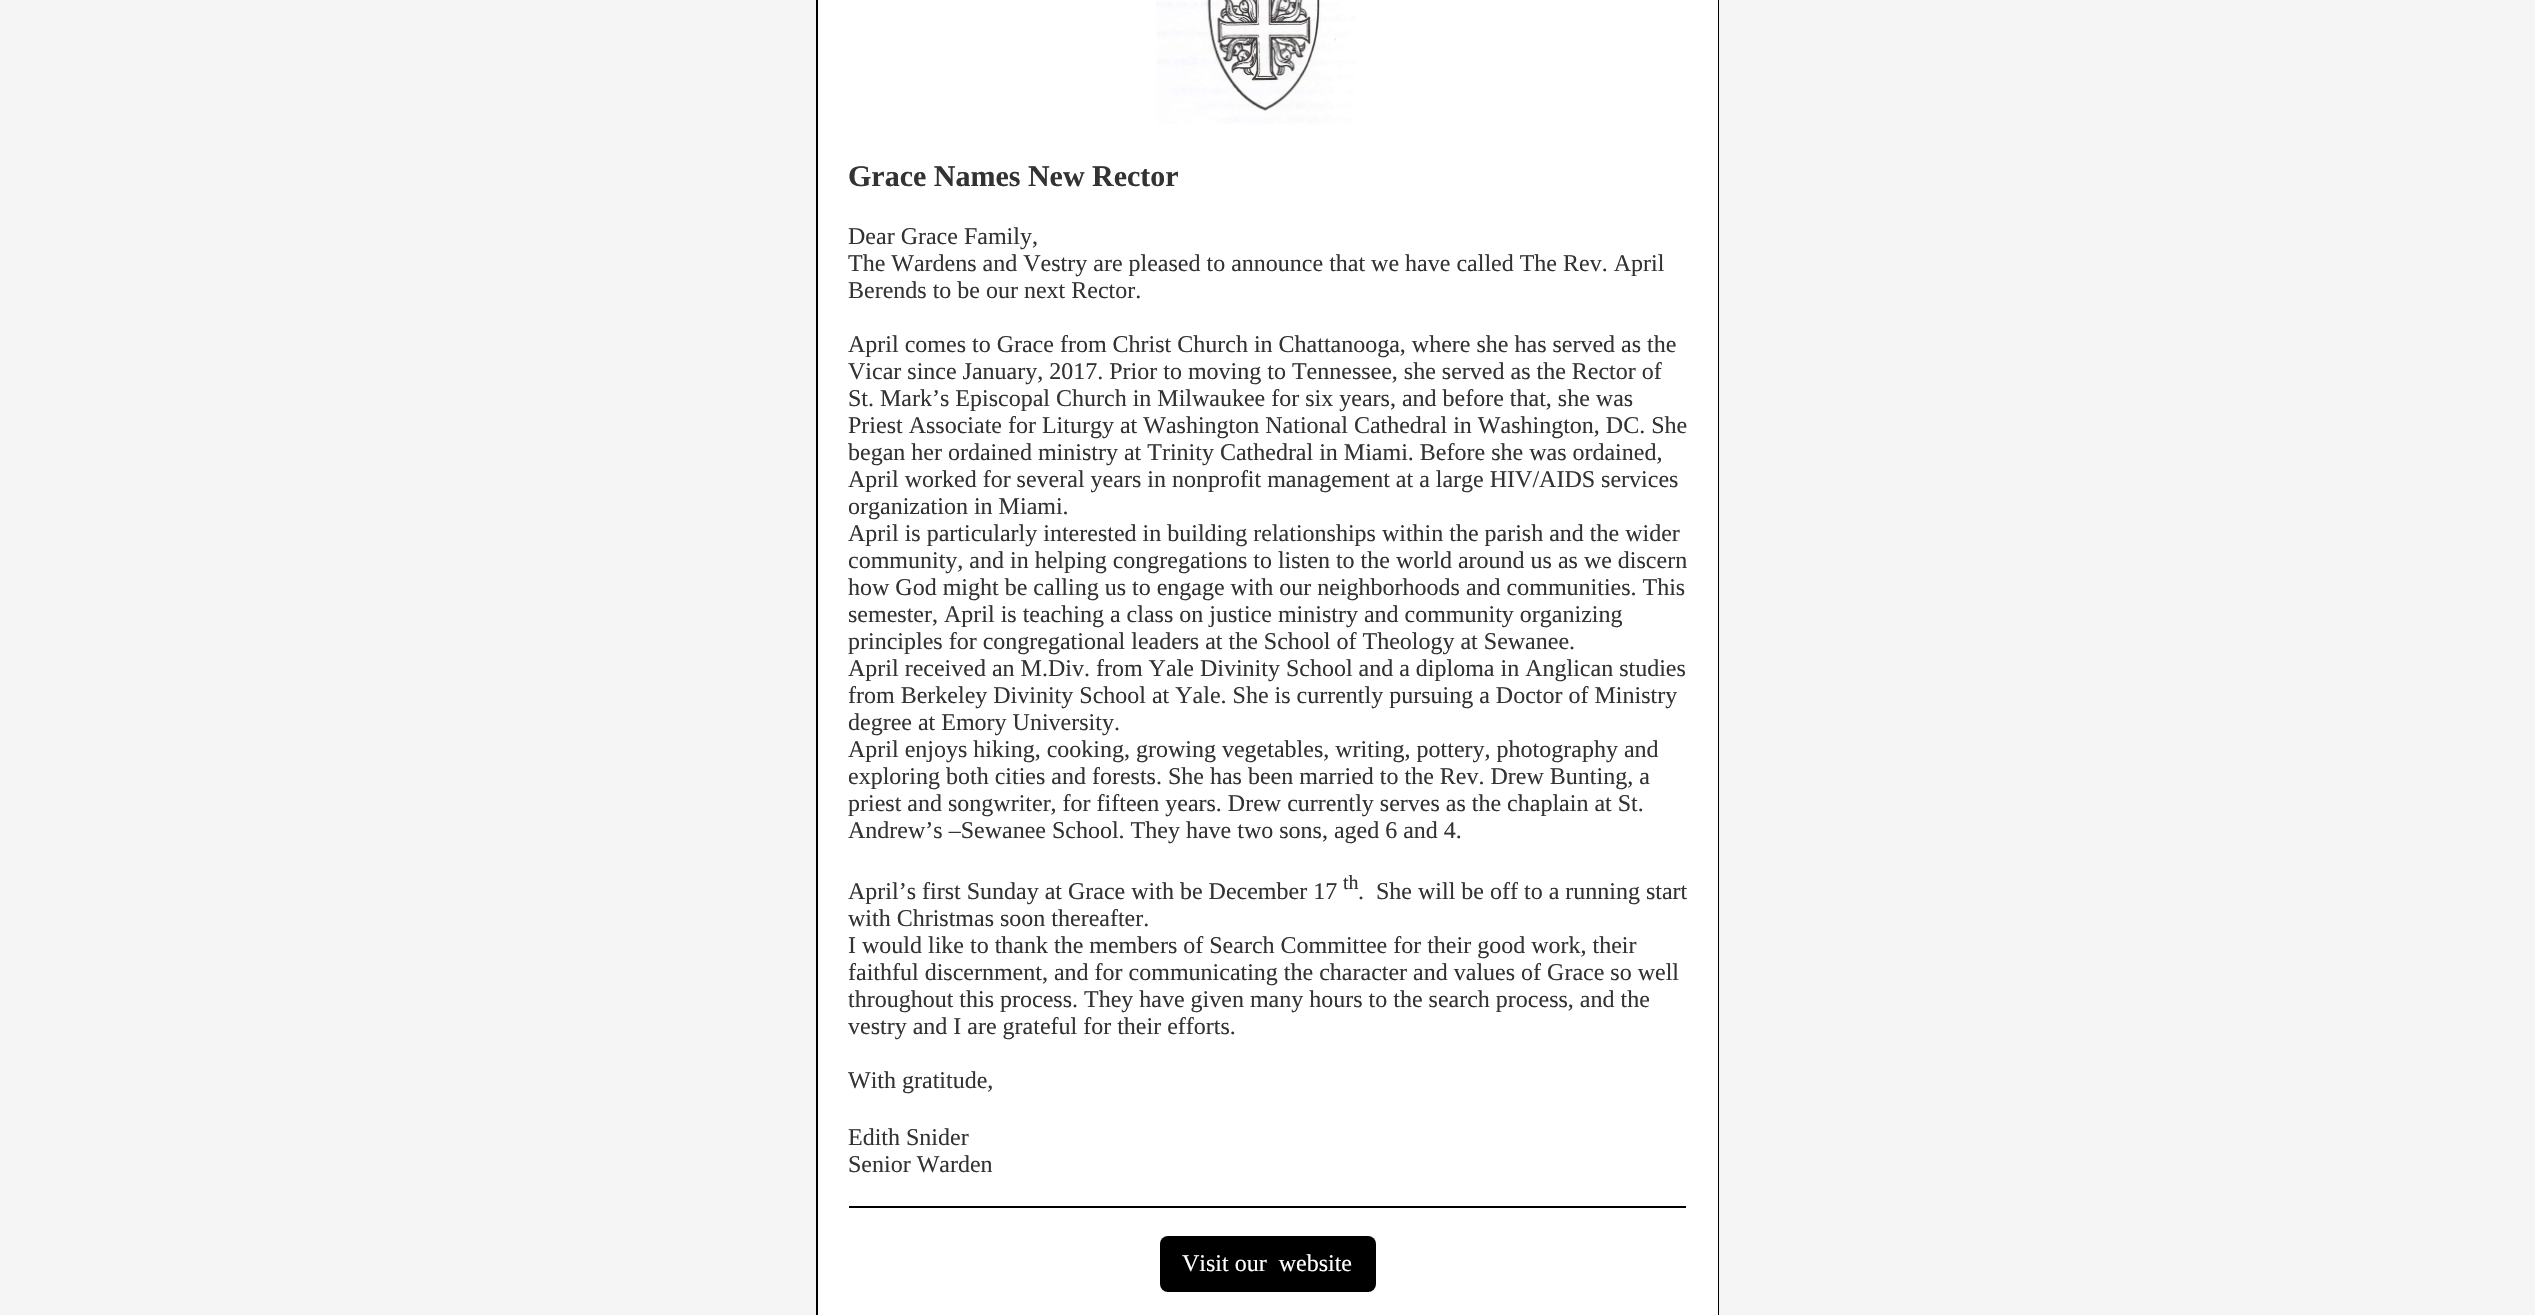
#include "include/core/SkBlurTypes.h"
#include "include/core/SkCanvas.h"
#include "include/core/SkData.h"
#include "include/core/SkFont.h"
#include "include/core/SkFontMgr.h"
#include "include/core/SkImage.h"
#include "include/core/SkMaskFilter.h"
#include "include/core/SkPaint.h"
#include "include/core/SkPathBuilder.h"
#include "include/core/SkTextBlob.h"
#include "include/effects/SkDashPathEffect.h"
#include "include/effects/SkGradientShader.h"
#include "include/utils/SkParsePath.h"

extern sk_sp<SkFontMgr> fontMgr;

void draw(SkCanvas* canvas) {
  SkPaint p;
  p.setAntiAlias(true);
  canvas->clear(SkColorSetRGB(245, 245, 245));
  p.setColor(SK_ColorBLACK);
  canvas->drawRect(SkRect::MakeLTRB(816, 0, 1719, 1315), p);
  p.setColor(SK_ColorWHITE);
  canvas->drawRect(SkRect::MakeLTRB(818, 0, 1718, 1315), p);
  canvas->drawImageRect(SkImages::DeferredFromEncodedData(SkData::MakeFromFileName("images/1.png")), SkRect::MakeLTRB(1156, 0, 1356, 124), SkSamplingOptions());
  p.setColor(SK_ColorBLACK);
  canvas->drawRect(SkRect::MakeLTRB(849, 1206, 1686, 1208), p);
  canvas->drawRoundRect(SkRect::MakeLTRB(1160, 1236, 1376, 1292), 8, 8, p);
  SkFont font1(fontMgr->matchFamilyStyle("Liberation Serif", SkFontStyle::Bold()), 30);
  font1.setSubpixel(true);
  p.setColor(SkColorSetRGB(51, 51, 51));
  canvas->drawString("Grace Names New Rector", 848, 186, font1, p);
  SkFont font2(fontMgr->matchFamilyStyle("Liberation Serif", SkFontStyle::Normal()), 24);
  font2.setSubpixel(true);
  canvas->drawString("Dear Grace Family,", 848, 244, font2, p);
  canvas->drawString("The Wardens and Vestry are pleased to announce that we have called The Rev. April", 848, 271, font2, p);
  canvas->drawString("Berends to be our next Rector.", 848, 298, font2, p);
  canvas->drawString("April comes to Grace from Christ Church in Chattanooga, where she has served as the", 848, 352, font2, p);
  canvas->drawString("Vicar since January, 2017. Prior to moving to Tennessee, she served as the Rector of", 848, 379, font2, p);
  canvas->drawString("St. Mark’s Episcopal Church in Milwaukee for six years, and before that, she was", 848, 406, font2, p);
  canvas->drawString("Priest Associate for Liturgy at Washington National Cathedral in Washington, DC. She", 848, 433, font2, p);
  canvas->drawString("began her ordained ministry at Trinity Cathedral in Miami. Before she was ordained,", 848, 460, font2, p);
  canvas->drawString("April worked for several years in nonprofit management at a large HIV/AIDS services", 848, 487, font2, p);
  canvas->drawString("organization in Miami.", 848, 514, font2, p);
  canvas->drawString("April is particularly interested in building relationships within the parish and the wider", 848, 541, font2, p);
  canvas->drawString("community, and in helping congregations to listen to the world around us as we discern", 848, 568, font2, p);
  canvas->drawString("how God might be calling us to engage with our neighborhoods and communities. This", 848, 595, font2, p);
  canvas->drawString("semester, April is teaching a class on justice ministry and community organizing", 848, 622, font2, p);
  canvas->drawString("principles for congregational leaders at the School of Theology at Sewanee.", 848, 649, font2, p);
  canvas->drawString("April received an M.Div. from Yale Divinity School and a diploma in Anglican studies", 848, 676, font2, p);
  canvas->drawString("from Berkeley Divinity School at Yale. She is currently pursuing a Doctor of Ministry", 848, 703, font2, p);
  canvas->drawString("degree at Emory University.", 848, 730, font2, p);
  canvas->drawString("April enjoys hiking, cooking, growing vegetables, writing, pottery, photography and", 848, 757, font2, p);
  canvas->drawString("exploring both cities and forests. She has been married to the Rev. Drew Bunting, a", 848, 784, font2, p);
  canvas->drawString("priest and songwriter, for fifteen years. Drew currently serves as the chaplain at St.", 848, 811, font2, p);
  canvas->drawString("Andrew’s –Sewanee School. They have two sons, aged 6 and 4.", 848, 838, font2, p);
  canvas->drawString("April’s first Sunday at Grace with be December 17", 848, 899, font2, p);
  SkFont font3(fontMgr->matchFamilyStyle("Liberation Serif", SkFontStyle::Normal()), 20);
  font3.setSubpixel(true);
  canvas->drawString("th", 1343, 889, font3, p);
  canvas->drawString(".  She will be off to a running start", 1358, 899, font2, p);
  canvas->drawString("with Christmas soon thereafter.", 848, 926, font2, p);
  canvas->drawString("I would like to thank the members of Search Committee for their good work, their", 848, 953, font2, p);
  canvas->drawString("faithful discernment, and for communicating the character and values of Grace so well", 848, 980, font2, p);
  canvas->drawString("throughout this process. They have given many hours to the search process, and the", 848, 1007, font2, p);
  canvas->drawString("vestry and I are grateful for their efforts.", 848, 1034, font2, p);
  canvas->drawString("With gratitude,", 848, 1088, font2, p);
  canvas->drawString("Edith Snider", 848, 1145, font2, p);
  canvas->drawString("Senior Warden", 848, 1172, font2, p);
  p.setColor(SK_ColorWHITE);
  canvas->drawString("Visit our  website", 1182, 1271, font2, p);
}
